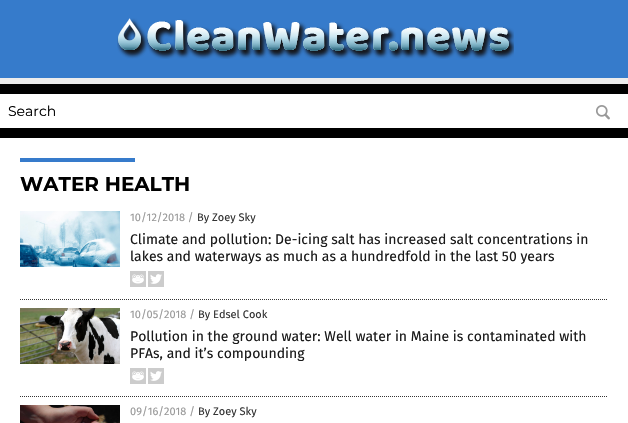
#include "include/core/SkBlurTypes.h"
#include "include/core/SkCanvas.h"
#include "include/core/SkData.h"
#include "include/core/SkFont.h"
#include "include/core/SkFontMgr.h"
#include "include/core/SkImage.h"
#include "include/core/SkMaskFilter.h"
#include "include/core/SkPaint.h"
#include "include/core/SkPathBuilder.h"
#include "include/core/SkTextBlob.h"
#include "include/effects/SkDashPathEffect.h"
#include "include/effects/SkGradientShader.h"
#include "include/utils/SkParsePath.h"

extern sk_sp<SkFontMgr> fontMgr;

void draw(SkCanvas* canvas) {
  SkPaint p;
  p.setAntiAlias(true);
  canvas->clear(SK_ColorBLACK);
  p.setColor(SkColorSetRGB(54, 123, 203));
  canvas->drawRect(SkRect::MakeLTRB(0, 0, 628, 78), p);
  canvas->drawImageRect(SkImages::DeferredFromEncodedData(SkData::MakeFromFileName("images/1.png")), SkRect::MakeLTRB(117, 18, 514, 59), SkSamplingOptions());
  p.setColor(SkColorSetRGB(236, 236, 236));
  canvas->drawRect(SkRect::MakeLTRB(0, 78, 628, 84), p);
  p.setColor(SK_ColorWHITE);
  canvas->drawRect(SkRect::MakeLTRB(0, 94, 628, 128), p);
  canvas->drawImageRect(SkImages::DeferredFromEncodedData(SkData::MakeFromFileName("images/2.png")), SkRect::MakeLTRB(596, 105, 610, 120), SkSamplingOptions());
  canvas->drawRect(SkRect::MakeLTRB(0, 138, 628, 423), p);
  p.setColor(SkColorSetRGB(54, 123, 203));
  canvas->drawRect(SkRect::MakeLTRB(20, 158, 135, 162), p);
  p.setStyle(SkPaint::kStroke_Style);
  p.setStrokeWidth(1);
  p.setColor(SkColorSetRGB(52, 52, 52));
  p.setPathEffect(SkDashPathEffect::Make({{1, 1}}, 0));
  canvas->drawPath(SkPathBuilder().moveTo(20, 299.5f).lineTo(608, 299.5f).detach(), p);
  p.setPathEffect(nullptr);
  canvas->drawImageRect(SkImages::DeferredFromEncodedData(SkData::MakeFromFileName("images/3.png")), SkRect::MakeLTRB(20, 211, 120, 267), SkSamplingOptions());
  canvas->drawImageRect(SkImages::DeferredFromEncodedData(SkData::MakeFromFileName("images/4.png")), SkRect::MakeLTRB(130, 271, 146, 287), SkSamplingOptions());
  canvas->drawImageRect(SkImages::DeferredFromEncodedData(SkData::MakeFromFileName("images/5.png")), SkRect::MakeLTRB(148, 271, 164, 287), SkSamplingOptions());
  p.setPathEffect(SkDashPathEffect::Make({{1, 1}}, 0));
  canvas->drawPath(SkPathBuilder().moveTo(20, 396.5f).lineTo(608, 396.5f).detach(), p);
  p.setPathEffect(nullptr);
  canvas->drawImageRect(SkImages::DeferredFromEncodedData(SkData::MakeFromFileName("images/6.png")), SkRect::MakeLTRB(20, 308, 120, 364), SkSamplingOptions());
  canvas->drawImageRect(SkImages::DeferredFromEncodedData(SkData::MakeFromFileName("images/4.png")), SkRect::MakeLTRB(130, 368, 146, 384), SkSamplingOptions());
  canvas->drawImageRect(SkImages::DeferredFromEncodedData(SkData::MakeFromFileName("images/5.png")), SkRect::MakeLTRB(148, 368, 164, 384), SkSamplingOptions());
  canvas->drawImageRect(SkImages::DeferredFromEncodedData(SkData::MakeFromFileName("images/7.png")), SkRect::MakeLTRB(20, 405, 120, 423), SkSamplingOptions());
  SkFont font1(fontMgr->matchFamilyStyle("Montserrat", SkFontStyle::Normal()), 14);
  font1.setSubpixel(true);
  p.setStyle(SkPaint::kFill_Style);
  p.setColor(SK_ColorBLACK);
  canvas->drawString("Search", 8, 116, font1, p);
  SkFont font2(fontMgr->matchFamilyStyle("Montserrat", SkFontStyle::Bold()), 20);
  font2.setSubpixel(true);
  canvas->drawString("WATER HEALTH", 20, 191, font2, p);
  SkFont font3(fontMgr->matchFamilyStyle("Fira Sans", SkFontStyle::Normal()), 11);
  font3.setSubpixel(true);
  p.setColor(SkColorSetRGB(153, 153, 153));
  canvas->drawString("10/12/2018 /", 130, 221, font3, p);
  p.setColor(SkColorSetRGB(51, 51, 51));
  canvas->drawString("By Zoey Sky", 197, 221, font3, p);
  SkFont font4(fontMgr->matchFamilyStyle("Fira Sans", SkFontStyle::Normal()), 14);
  font4.setSubpixel(true);
  p.setColor(SkColorSetRGB(26, 26, 26));
  canvas->drawString("Climate and pollution: De-icing salt has increased salt concentrations in", 130, 244, font4, p);
  canvas->drawString("lakes and waterways as much as a hundredfold in the last 50 years", 130, 261, font4, p);
  p.setColor(SkColorSetRGB(153, 153, 153));
  canvas->drawString("10/05/2018 /", 130, 318, font3, p);
  p.setColor(SkColorSetRGB(51, 51, 51));
  canvas->drawString("By Edsel Cook", 198, 318, font3, p);
  p.setColor(SkColorSetRGB(26, 26, 26));
  canvas->drawString("Pollution in the ground water: Well water in Maine is contaminated with", 130, 341, font4, p);
  canvas->drawString("PFAs, and it’s compounding", 130, 358, font4, p);
  p.setColor(SkColorSetRGB(153, 153, 153));
  canvas->drawString("09/16/2018 /", 130, 415, font3, p);
  p.setColor(SkColorSetRGB(51, 51, 51));
  canvas->drawString("By Zoey Sky", 198, 415, font3, p);
}
